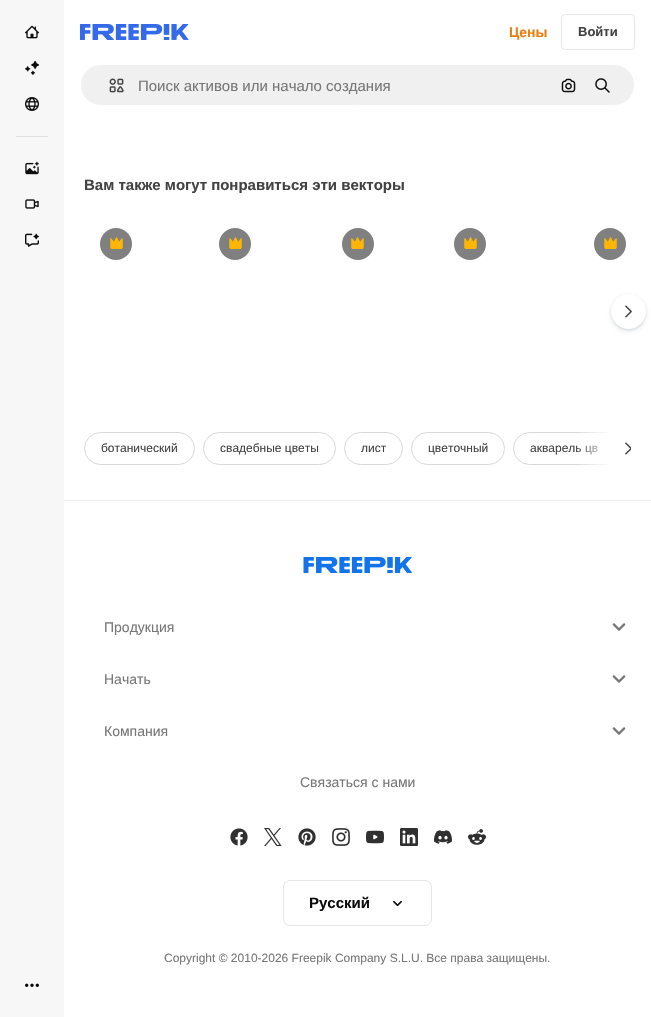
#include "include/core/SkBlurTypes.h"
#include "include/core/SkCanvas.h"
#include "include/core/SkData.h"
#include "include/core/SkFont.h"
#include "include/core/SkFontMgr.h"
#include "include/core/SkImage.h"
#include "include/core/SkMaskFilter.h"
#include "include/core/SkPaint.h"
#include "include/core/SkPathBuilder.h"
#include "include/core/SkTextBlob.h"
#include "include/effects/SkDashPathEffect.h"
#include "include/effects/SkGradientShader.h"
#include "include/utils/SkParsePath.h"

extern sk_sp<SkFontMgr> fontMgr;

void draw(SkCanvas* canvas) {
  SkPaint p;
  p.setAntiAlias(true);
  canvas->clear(SK_ColorWHITE);
  p.setColor(SkColorSetRGB(247, 247, 247));
  canvas->drawRect(SkRect::MakeLTRB(0, 0, 64, 1017), p);
  canvas->drawImageRect(SkImages::DeferredFromEncodedData(SkData::MakeFromFileName("images/1.png")), SkRect::MakeLTRB(25, 25, 39, 39), SkSamplingOptions());
  canvas->drawImageRect(SkImages::DeferredFromEncodedData(SkData::MakeFromFileName("images/2.png")), SkRect::MakeLTRB(25, 61, 39, 75), SkSamplingOptions());
  canvas->drawImageRect(SkImages::DeferredFromEncodedData(SkData::MakeFromFileName("images/3.png")), SkRect::MakeLTRB(25, 97, 39, 111), SkSamplingOptions());
  p.setColor(SkColorSetRGB(224, 224, 224));
  canvas->drawRect(SkRect::MakeLTRB(16, 136, 48, 137), p);
  canvas->drawImageRect(SkImages::DeferredFromEncodedData(SkData::MakeFromFileName("images/4.png")), SkRect::MakeLTRB(25, 161, 39, 175), SkSamplingOptions());
  canvas->drawImageRect(SkImages::DeferredFromEncodedData(SkData::MakeFromFileName("images/5.png")), SkRect::MakeLTRB(25, 199, 39, 209), SkSamplingOptions());
  canvas->drawImageRect(SkImages::DeferredFromEncodedData(SkData::MakeFromFileName("images/6.png")), SkRect::MakeLTRB(25, 233, 39, 247), SkSamplingOptions());
  canvas->drawImageRect(SkImages::DeferredFromEncodedData(SkData::MakeFromFileName("images/7.png")), SkRect::MakeLTRB(25, 983, 39, 987), SkSamplingOptions());
  canvas->drawImageRect(SkImages::DeferredFromEncodedData(SkData::MakeFromFileName("images/8.png")), SkRect::MakeLTRB(80, 24, 189, 40), SkSamplingOptions());
  p.setStyle(SkPaint::kStroke_Style);
  p.setStrokeWidth(1);
  p.setColor(SkColorSetRGB(231, 231, 231));
  canvas->drawRoundRect(SkRect::MakeLTRB(561.5f, 14.5f, 634.5f, 49.5f), 3.5f, 3.5f, p);
  p.setStyle(SkPaint::kFill_Style);
  p.setColor(SkColorSetRGB(240, 240, 240));
  canvas->drawRoundRect(SkRect::MakeLTRB(80.5f, 64.5f, 634.5f, 105.5f), 20.5f, 20.5f, p);
  p.setStyle(SkPaint::kStroke_Style);
  p.setColor(SK_ColorWHITE);
  canvas->drawRoundRect(SkRect::MakeLTRB(80.5f, 64.5f, 634.5f, 105.5f), 20.5f, 20.5f, p);
  canvas->drawImageRect(SkImages::DeferredFromEncodedData(SkData::MakeFromFileName("images/9.png")), SkRect::MakeLTRB(109, 78, 124, 93), SkSamplingOptions());
  canvas->drawImageRect(SkImages::DeferredFromEncodedData(SkData::MakeFromFileName("images/10.png")), SkRect::MakeLTRB(561, 78, 576, 93), SkSamplingOptions());
  canvas->drawImageRect(SkImages::DeferredFromEncodedData(SkData::MakeFromFileName("images/11.png")), SkRect::MakeLTRB(595, 78, 610, 93), SkSamplingOptions());
  p.setStyle(SkPaint::kFill_Style);
  p.setColor(SkColorSetRGB(128, 128, 128));
  canvas->drawCircle(116, 244, 16, p);
  canvas->drawImageRect(SkImages::DeferredFromEncodedData(SkData::MakeFromFileName("images/12.png")), SkRect::MakeLTRB(110, 237, 123, 249), SkSamplingOptions());
  canvas->drawCircle(235, 244, 16, p);
  canvas->drawImageRect(SkImages::DeferredFromEncodedData(SkData::MakeFromFileName("images/12.png")), SkRect::MakeLTRB(229, 237, 242, 249), SkSamplingOptions());
  canvas->drawCircle(358, 244, 16, p);
  canvas->drawImageRect(SkImages::DeferredFromEncodedData(SkData::MakeFromFileName("images/12.png")), SkRect::MakeLTRB(351, 237, 364, 249), SkSamplingOptions());
  canvas->drawCircle(470, 244, 16, p);
  canvas->drawImageRect(SkImages::DeferredFromEncodedData(SkData::MakeFromFileName("images/12.png")), SkRect::MakeLTRB(464, 237, 477, 249), SkSamplingOptions());
  canvas->drawCircle(610, 244, 16, p);
  canvas->drawImageRect(SkImages::DeferredFromEncodedData(SkData::MakeFromFileName("images/12.png")), SkRect::MakeLTRB(604, 237, 617, 249), SkSamplingOptions());
  p.setColor(SkColorSetARGB(38, 55, 73, 87));
  p.setMaskFilter(SkMaskFilter::MakeBlur(kNormal_SkBlurStyle, 2.5f));
  canvas->drawRoundRect(SkRect::MakeLTRB(611, 296, 646, 331), 17.5f, 17.5f, p);
  p.setMaskFilter(nullptr);
  p.setColor(SkColorSetARGB(26, 55, 73, 87));
  p.setMaskFilter(SkMaskFilter::MakeBlur(kNormal_SkBlurStyle, 1));
  canvas->drawRoundRect(SkRect::MakeLTRB(611, 295, 646, 330), 17.5f, 17.5f, p);
  p.setMaskFilter(nullptr);
  p.setColor(SK_ColorWHITE);
  canvas->drawCircle(628.5f, 311.5f, 17.5f, p);
  canvas->drawImageRect(SkImages::DeferredFromEncodedData(SkData::MakeFromFileName("images/13.png")), SkRect::MakeLTRB(625, 305, 632, 318), SkSamplingOptions());
  p.setStyle(SkPaint::kStroke_Style);
  p.setColor(SkColorSetRGB(216, 216, 216));
  canvas->drawRoundRect(SkRect::MakeLTRB(84.5f, 432.5f, 194.5f, 464.5f), 16, 16, p);
  canvas->drawRoundRect(SkRect::MakeLTRB(203.5f, 432.5f, 335.5f, 464.5f), 16, 16, p);
  canvas->drawRoundRect(SkRect::MakeLTRB(344.5f, 432.5f, 402.5f, 464.5f), 16, 16, p);
  canvas->drawRoundRect(SkRect::MakeLTRB(411.5f, 432.5f, 504.5f, 464.5f), 16, 16, p);
  canvas->save();
  canvas->clipRect(SkRect::MakeLTRB(84, 432, 631, 465));
  canvas->drawRoundRect(SkRect::MakeLTRB(513.5f, 432.5f, 635.5f, 464.5f), 16, 16, p);
  canvas->restore();
  p.setStyle(SkPaint::kFill_Style);
  p.setColor(SK_ColorWHITE);
  canvas->drawRect(SkRect::MakeLTRB(611, 432, 631, 465), p);
  canvas->drawImageRect(SkImages::DeferredFromEncodedData(SkData::MakeFromFileName("images/14.png")), SkRect::MakeLTRB(625, 442, 631, 455), SkSamplingOptions());
  p.setColor(SkColorSetRGB(240, 240, 240));
  canvas->drawRect(SkRect::MakeLTRB(64, 500, 651, 501), p);
  canvas->drawImageRect(SkImages::DeferredFromEncodedData(SkData::MakeFromFileName("images/15.png")), SkRect::MakeLTRB(303, 557, 412, 573), SkSamplingOptions());
  canvas->drawImageRect(SkImages::DeferredFromEncodedData(SkData::MakeFromFileName("images/16.png")), SkRect::MakeLTRB(612, 623, 626, 631), SkSamplingOptions());
  canvas->drawImageRect(SkImages::DeferredFromEncodedData(SkData::MakeFromFileName("images/16.png")), SkRect::MakeLTRB(612, 675, 626, 683), SkSamplingOptions());
  canvas->drawImageRect(SkImages::DeferredFromEncodedData(SkData::MakeFromFileName("images/16.png")), SkRect::MakeLTRB(612, 727, 626, 735), SkSamplingOptions());
  canvas->drawImageRect(SkImages::DeferredFromEncodedData(SkData::MakeFromFileName("images/17.png")), SkRect::MakeLTRB(230, 828, 248, 846), SkSamplingOptions());
  canvas->drawImageRect(SkImages::DeferredFromEncodedData(SkData::MakeFromFileName("images/18.png")), SkRect::MakeLTRB(264, 828, 282, 846), SkSamplingOptions());
  canvas->drawImageRect(SkImages::DeferredFromEncodedData(SkData::MakeFromFileName("images/19.png")), SkRect::MakeLTRB(298, 828, 316, 846), SkSamplingOptions());
  canvas->drawImageRect(SkImages::DeferredFromEncodedData(SkData::MakeFromFileName("images/20.png")), SkRect::MakeLTRB(332, 828, 350, 846), SkSamplingOptions());
  canvas->drawImageRect(SkImages::DeferredFromEncodedData(SkData::MakeFromFileName("images/21.png")), SkRect::MakeLTRB(366, 830, 384, 844), SkSamplingOptions());
  canvas->drawImageRect(SkImages::DeferredFromEncodedData(SkData::MakeFromFileName("images/22.png")), SkRect::MakeLTRB(400, 828, 418, 846), SkSamplingOptions());
  canvas->drawImageRect(SkImages::DeferredFromEncodedData(SkData::MakeFromFileName("images/23.png")), SkRect::MakeLTRB(434, 830, 452, 844), SkSamplingOptions());
  canvas->drawImageRect(SkImages::DeferredFromEncodedData(SkData::MakeFromFileName("images/24.png")), SkRect::MakeLTRB(468, 829, 486, 845), SkSamplingOptions());
  p.setStyle(SkPaint::kStroke_Style);
  p.setColor(SkColorSetRGB(230, 230, 230));
  canvas->drawRoundRect(SkRect::MakeLTRB(283.5f, 880.5f, 431.5f, 925.5f), 6.5f, 6.5f, p);
  canvas->drawImageRect(SkImages::DeferredFromEncodedData(SkData::MakeFromFileName("images/25.png")), SkRect::MakeLTRB(393, 900, 402, 907), SkSamplingOptions());
  SkFont font1(fontMgr->matchFamilyStyle("Liberation Sans", SkFontStyle::Bold()), 14);
  font1.setSubpixel(true);
  p.setStyle(SkPaint::kFill_Style);
  p.setColor(SkColorSetRGB(234, 126, 17));
  canvas->drawString("Цены", 509, 37, font1, p);
  SkFont font2(fontMgr->matchFamilyStyle("Liberation Sans", SkFontStyle::Bold()), 13);
  font2.setSubpixel(true);
  p.setColor(SkColorSetRGB(66, 66, 66));
  canvas->drawString("Войти", 578, 36, font2, p);
  SkFont font3(fontMgr->matchFamilyStyle("Liberation Sans", SkFontStyle::Normal()), 15);
  font3.setSubpixel(true);
  p.setColor(SkColorSetRGB(119, 119, 119));
  canvas->drawString("Поиск активов или начало создания", 138, 91, font3, p);
  SkFont font4(fontMgr->matchFamilyStyle("Liberation Sans", SkFontStyle::Bold()), 15);
  font4.setSubpixel(true);
  p.setColor(SkColorSetRGB(66, 66, 66));
  canvas->drawString("Вам также могут понравиться эти векторы", 84, 190, font4, p);
  SkFont font5(fontMgr->matchFamilyStyle("Liberation Sans", SkFontStyle::Normal()), 12);
  font5.setSubpixel(true);
  canvas->drawString("ботанический", 101, 452, font5, p);
  canvas->drawString("свадебные цветы", 220, 452, font5, p);
  canvas->drawString("лист", 361, 452, font5, p);
  canvas->drawString("цветочный", 428, 452, font5, p);
  canvas->drawString("акварель цв", 530, 452, font5, p);
  {
    const SkColor colors[] = {SK_ColorWHITE, SkColorSetARGB(0, 255, 255, 255)};
    const float stops[] = {0, 1};
    const SkPoint ends[] = {{611, 449}, {576, 449}};
    p.setShader(SkGradientShader::MakeLinear(ends, colors, stops, 2, SkTileMode::kClamp));
    p.setAlpha(255);
  }
  canvas->drawRect(SkRect::MakeLTRB(577, 432, 611, 465), p);
  SkFont font6(fontMgr->matchFamilyStyle("Liberation Sans", SkFontStyle::Normal()), 14);
  font6.setSubpixel(true);
  p.setShader(nullptr);
  p.setColor(SkColorSetRGB(119, 119, 119));
  canvas->drawString("Продукция", 104, 632, font6, p);
  canvas->drawString("Начать", 104, 684, font6, p);
  canvas->drawString("Компания", 104, 736, font6, p);
  canvas->drawString("Связаться с нами", 300, 787, font6, p);
  p.setColor(SkColorSetRGB(13, 13, 13));
  canvas->drawString("Pусский", 309, 908, font4, p);
  p.setColor(SkColorSetRGB(119, 119, 119));
  canvas->drawString("Copyright © 2010-2026 Freepik Company S.L.U. Все права защищены.", 164, 962, font5, p);
}
